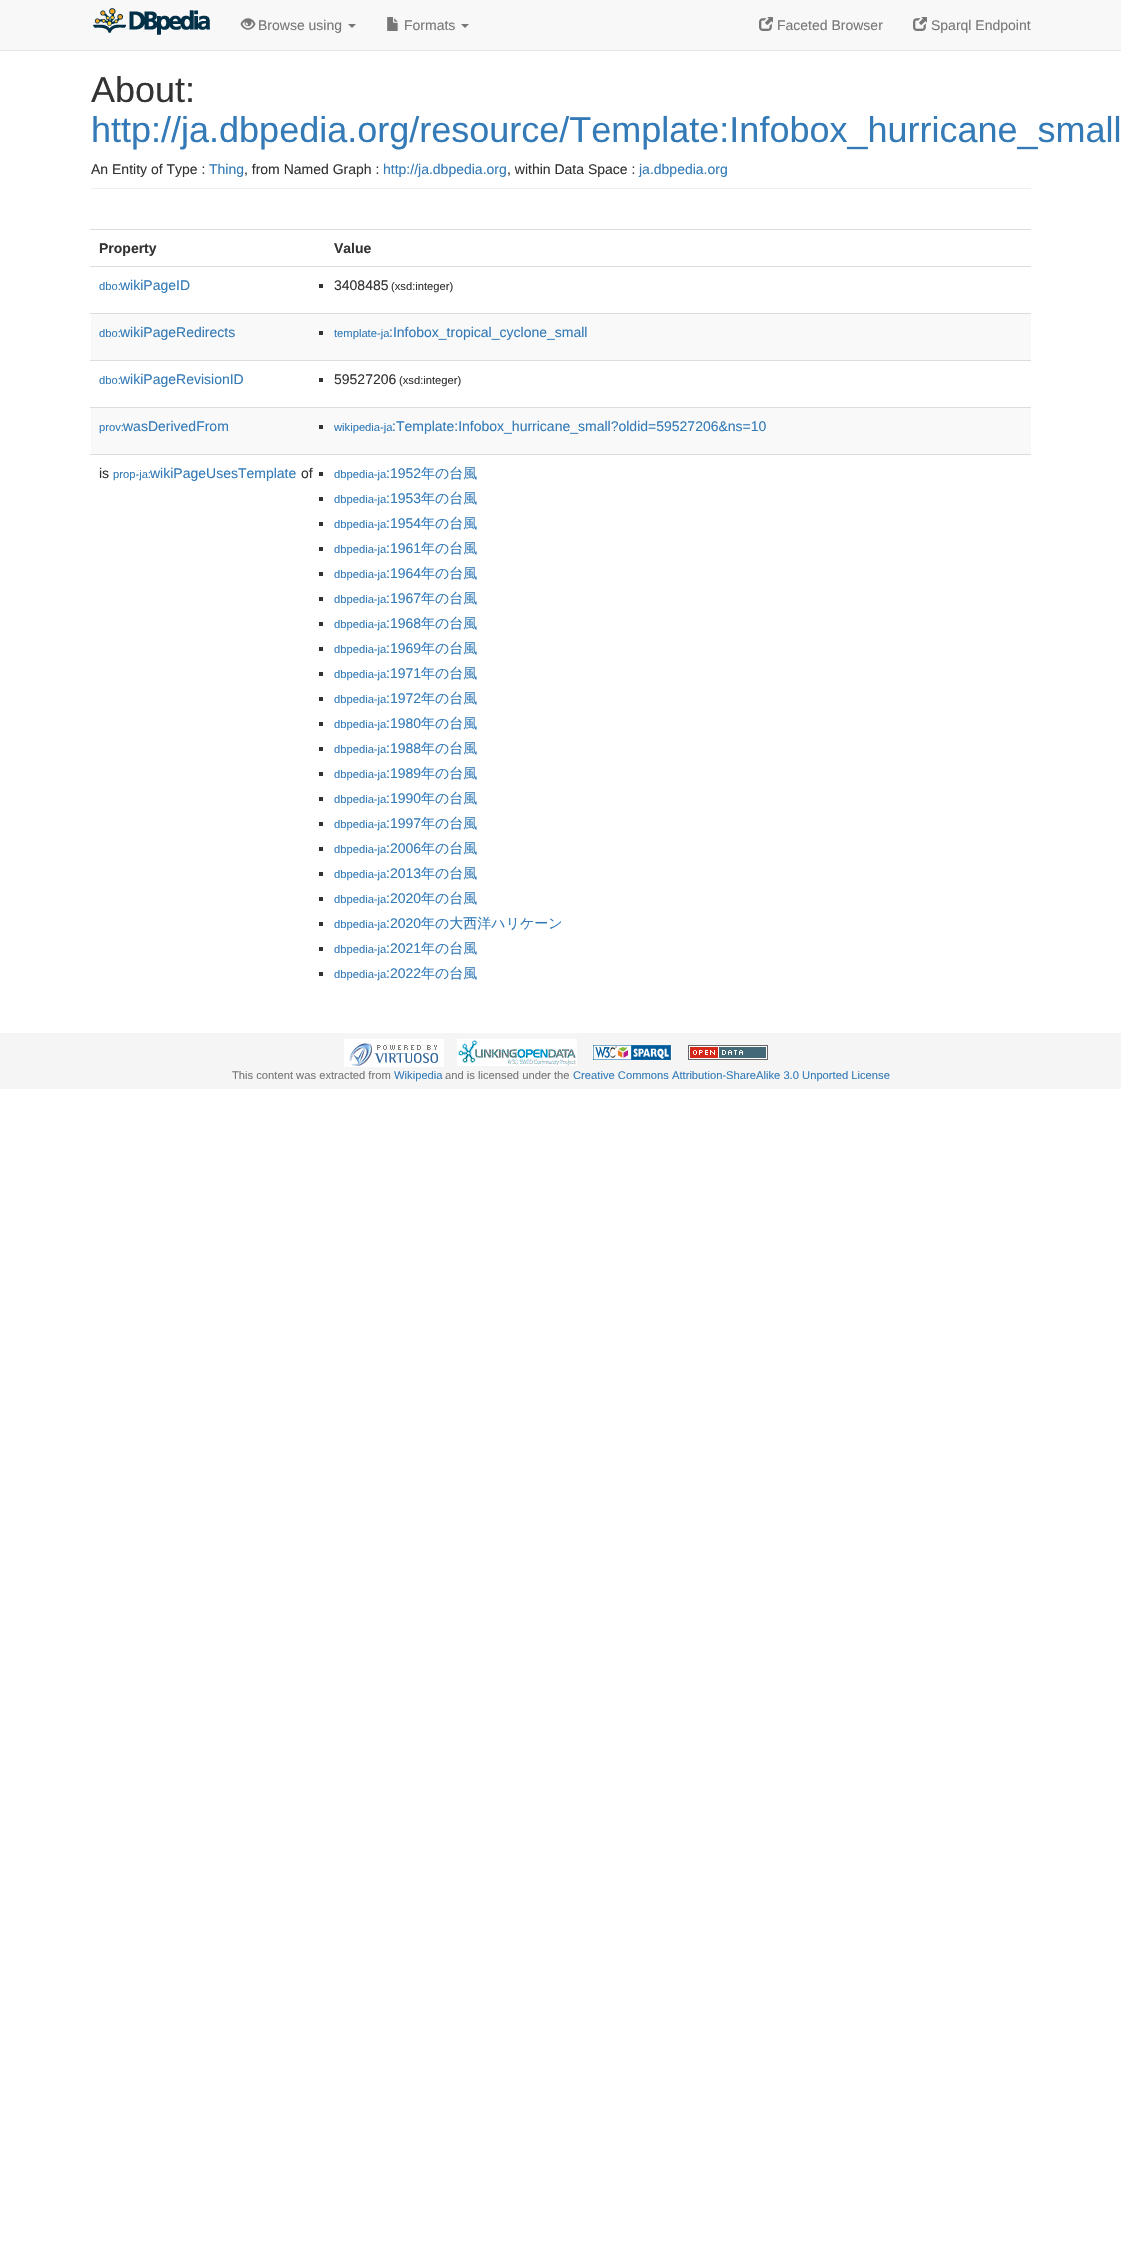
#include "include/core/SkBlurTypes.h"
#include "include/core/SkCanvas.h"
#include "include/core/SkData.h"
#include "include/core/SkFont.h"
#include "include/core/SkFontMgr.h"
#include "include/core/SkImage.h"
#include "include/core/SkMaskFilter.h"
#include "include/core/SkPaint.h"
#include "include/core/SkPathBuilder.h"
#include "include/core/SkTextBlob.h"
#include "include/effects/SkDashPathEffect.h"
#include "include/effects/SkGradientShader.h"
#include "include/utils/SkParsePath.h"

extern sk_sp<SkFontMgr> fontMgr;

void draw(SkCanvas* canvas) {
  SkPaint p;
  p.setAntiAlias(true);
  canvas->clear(SK_ColorWHITE);
  p.setColor(SkColorSetRGB(248, 248, 248));
  canvas->drawRect(SkRect::MakeLTRB(0, 0, 1121, 50), p);
  p.setColor(SkColorSetRGB(231, 231, 231));
  canvas->drawRect(SkRect::MakeLTRB(0, 50, 1121, 51), p);
  canvas->drawImageRect(SkImages::DeferredFromEncodedData(SkData::MakeFromFileName("images/1.png")), SkRect::MakeLTRB(93, 8, 210, 35), SkSamplingOptions());
  canvas->drawImageRect(SkImages::DeferredFromEncodedData(SkData::MakeFromFileName("images/2.png")), SkRect::MakeLTRB(240, 18, 256, 30), SkSamplingOptions());
  p.setColor(SkColorSetRGB(119, 119, 119));
  canvas->drawPath(SkPathBuilder().moveTo(348, 24).lineTo(356, 24).lineTo(352, 28).close().detach(), p);
  canvas->drawImageRect(SkImages::DeferredFromEncodedData(SkData::MakeFromFileName("images/3.png")), SkRect::MakeLTRB(387, 17, 398, 31), SkSamplingOptions());
  canvas->drawPath(SkPathBuilder().moveTo(461, 24).lineTo(469, 24).lineTo(465, 28).close().detach(), p);
  canvas->drawImageRect(SkImages::DeferredFromEncodedData(SkData::MakeFromFileName("images/4.png")), SkRect::MakeLTRB(759, 17, 773, 31), SkSamplingOptions());
  canvas->drawImageRect(SkImages::DeferredFromEncodedData(SkData::MakeFromFileName("images/4.png")), SkRect::MakeLTRB(913, 17, 927, 31), SkSamplingOptions());
  p.setColor(SkColorSetRGB(238, 238, 238));
  canvas->drawRect(SkRect::MakeLTRB(91, 188, 1031, 189), p);
  p.setColor(SkColorSetRGB(221, 221, 221));
  canvas->drawRect(SkRect::MakeLTRB(90, 229, 1031, 230), p);
  canvas->drawRect(SkRect::MakeLTRB(90, 266, 1031, 267), p);
  p.setColor(SkColorSetRGB(51, 51, 51));
  canvas->drawRect(SkRect::MakeLTRB(319, 284, 323, 288), p);
  p.setColor(SkColorSetRGB(249, 249, 249));
  canvas->drawRect(SkRect::MakeLTRB(91, 314, 1031, 360), p);
  p.setColor(SkColorSetRGB(221, 221, 221));
  canvas->drawRect(SkRect::MakeLTRB(90, 313, 1031, 314), p);
  p.setColor(SkColorSetRGB(51, 51, 51));
  canvas->drawRect(SkRect::MakeLTRB(319, 331, 323, 335), p);
  p.setColor(SkColorSetRGB(221, 221, 221));
  canvas->drawRect(SkRect::MakeLTRB(90, 360, 1031, 361), p);
  p.setColor(SkColorSetRGB(51, 51, 51));
  canvas->drawRect(SkRect::MakeLTRB(319, 378, 323, 382), p);
  p.setColor(SkColorSetRGB(249, 249, 249));
  canvas->drawRect(SkRect::MakeLTRB(91, 408, 1031, 454), p);
  p.setColor(SkColorSetRGB(221, 221, 221));
  canvas->drawRect(SkRect::MakeLTRB(90, 407, 1031, 408), p);
  p.setColor(SkColorSetRGB(51, 51, 51));
  canvas->drawRect(SkRect::MakeLTRB(319, 425, 323, 429), p);
  p.setColor(SkColorSetRGB(221, 221, 221));
  canvas->drawRect(SkRect::MakeLTRB(90, 454, 1031, 455), p);
  p.setColor(SkColorSetRGB(51, 51, 51));
  canvas->drawRect(SkRect::MakeLTRB(319, 472, 323, 476), p);
  canvas->drawRect(SkRect::MakeLTRB(319, 497, 323, 501), p);
  canvas->drawRect(SkRect::MakeLTRB(319, 522, 323, 526), p);
  canvas->drawRect(SkRect::MakeLTRB(319, 547, 323, 551), p);
  canvas->drawRect(SkRect::MakeLTRB(319, 572, 323, 576), p);
  canvas->drawRect(SkRect::MakeLTRB(319, 597, 323, 601), p);
  canvas->drawRect(SkRect::MakeLTRB(319, 622, 323, 626), p);
  canvas->drawRect(SkRect::MakeLTRB(319, 647, 323, 651), p);
  canvas->drawRect(SkRect::MakeLTRB(319, 672, 323, 676), p);
  canvas->drawRect(SkRect::MakeLTRB(319, 697, 323, 701), p);
  canvas->drawRect(SkRect::MakeLTRB(319, 722, 323, 726), p);
  canvas->drawRect(SkRect::MakeLTRB(319, 747, 323, 751), p);
  canvas->drawRect(SkRect::MakeLTRB(319, 772, 323, 776), p);
  canvas->drawRect(SkRect::MakeLTRB(319, 797, 323, 801), p);
  canvas->drawRect(SkRect::MakeLTRB(319, 822, 323, 826), p);
  canvas->drawRect(SkRect::MakeLTRB(319, 847, 323, 851), p);
  canvas->drawRect(SkRect::MakeLTRB(319, 872, 323, 876), p);
  canvas->drawRect(SkRect::MakeLTRB(319, 897, 323, 901), p);
  canvas->drawRect(SkRect::MakeLTRB(319, 922, 323, 926), p);
  canvas->drawRect(SkRect::MakeLTRB(319, 947, 323, 951), p);
  canvas->drawRect(SkRect::MakeLTRB(319, 972, 323, 976), p);
  p.setColor(SkColorSetRGB(245, 245, 245));
  canvas->drawRect(SkRect::MakeLTRB(0, 1033, 1121, 1089), p);
  canvas->drawImageRect(SkImages::DeferredFromEncodedData(SkData::MakeFromFileName("images/5.png")), SkRect::MakeLTRB(344, 1039, 444, 1067), SkSamplingOptions());
  canvas->drawImageRect(SkImages::DeferredFromEncodedData(SkData::MakeFromFileName("images/6.png")), SkRect::MakeLTRB(457, 1039, 577, 1066), SkSamplingOptions());
  canvas->drawImageRect(SkImages::DeferredFromEncodedData(SkData::MakeFromFileName("images/7.png")), SkRect::MakeLTRB(592, 1045, 672, 1060), SkSamplingOptions());
  canvas->drawImageRect(SkImages::DeferredFromEncodedData(SkData::MakeFromFileName("images/8.png")), SkRect::MakeLTRB(688, 1045, 768, 1060), SkSamplingOptions());
  SkFont font1(fontMgr->matchFamilyStyle("Liberation Sans", SkFontStyle::Normal()), 14);
  font1.setSubpixel(true);
  p.setColor(SkColorSetRGB(119, 119, 119));
  canvas->drawString("Browse using", 258, 30, font1, p);
  canvas->drawString("Formats", 404, 30, font1, p);
  canvas->drawString("Faceted Browser", 777, 30, font1, p);
  canvas->drawString("Sparql Endpoint", 931, 30, font1, p);
  SkFont font2(fontMgr->matchFamilyStyle("Liberation Sans", SkFontStyle::Normal()), 36);
  font2.setSubpixel(true);
  p.setColor(SkColorSetRGB(51, 51, 51));
  canvas->drawString("About:", 91, 102, font2, p);
  p.setColor(SkColorSetRGB(51, 122, 183));
  canvas->drawString("http://ja.dbpedia.org/resource/Template:Infobox_hurricane_small", 91, 142, font2, p);
  p.setColor(SkColorSetRGB(51, 51, 51));
  canvas->drawString("An Entity of Type :", 91, 174, font1, p);
  p.setColor(SkColorSetRGB(51, 122, 183));
  canvas->drawString("Thing", 209, 174, font1, p);
  p.setColor(SkColorSetRGB(51, 51, 51));
  canvas->drawString(", from Named Graph :", 244, 174, font1, p);
  p.setColor(SkColorSetRGB(51, 122, 183));
  canvas->drawString("http://ja.dbpedia.org", 383, 174, font1, p);
  p.setColor(SkColorSetRGB(51, 51, 51));
  canvas->drawString(", within Data Space :", 507, 174, font1, p);
  p.setColor(SkColorSetRGB(51, 122, 183));
  canvas->drawString("ja.dbpedia.org", 639, 174, font1, p);
  SkFont font3(fontMgr->matchFamilyStyle("Liberation Sans", SkFontStyle::Bold()), 14);
  font3.setSubpixel(true);
  p.setColor(SkColorSetRGB(51, 51, 51));
  canvas->drawString("Property", 99, 253, font3, p);
  canvas->drawString("Value", 334, 253, font3, p);
  SkFont font4(fontMgr->matchFamilyStyle("Liberation Sans", SkFontStyle::Normal()), 11.2f);
  font4.setSubpixel(true);
  p.setColor(SkColorSetRGB(51, 122, 183));
  canvas->drawString("dbo:", 99, 290, font4, p);
  canvas->drawString("wikiPageID", 120, 290, font1, p);
  p.setColor(SkColorSetRGB(51, 51, 51));
  canvas->drawString("3408485", 334, 290, font1, p);
  canvas->drawString("(xsd:integer)", 391, 290, font4, p);
  p.setColor(SkColorSetRGB(51, 122, 183));
  canvas->drawString("dbo:", 99, 337, font4, p);
  canvas->drawString("wikiPageRedirects", 120, 337, font1, p);
  canvas->drawString("template-ja", 334, 337, font4, p);
  canvas->drawString(":Infobox_tropical_cyclone_small", 389, 337, font1, p);
  canvas->drawString("dbo:", 99, 384, font4, p);
  canvas->drawString("wikiPageRevisionID", 120, 384, font1, p);
  p.setColor(SkColorSetRGB(51, 51, 51));
  canvas->drawString("59527206", 334, 384, font1, p);
  canvas->drawString("(xsd:integer)", 399, 384, font4, p);
  p.setColor(SkColorSetRGB(51, 122, 183));
  canvas->drawString("prov:", 99, 431, font4, p);
  canvas->drawString("wasDerivedFrom", 123, 431, font1, p);
  canvas->drawString("wikipedia-ja", 334, 431, font4, p);
  canvas->drawString(":Template:Infobox_hurricane_small?oldid=59527206&ns=10", 392, 431, font1, p);
  p.setColor(SkColorSetRGB(51, 51, 51));
  canvas->drawString("is", 99, 478, font1, p);
  p.setColor(SkColorSetRGB(51, 122, 183));
  canvas->drawString("prop-ja:", 113, 478, font4, p);
  canvas->drawString("wikiPageUsesTemplate", 150, 478, font1, p);
  p.setColor(SkColorSetRGB(51, 51, 51));
  canvas->drawString("of", 301, 478, font1, p);
  p.setColor(SkColorSetRGB(51, 122, 183));
  canvas->drawString("dbpedia-ja", 334, 478, font4, p);
  canvas->drawString(":1952", 386, 478, font1, p);
  SkFont font5(fontMgr->matchFamilyStyle("WenQuanYi Zen Hei", SkFontStyle(500, SkFontStyle::kNormal_Width, SkFontStyle::kUpright_Slant)), 14);
  font5.setSubpixel(true);
  canvas->drawString("年の台風", 421, 478, font5, p);
  canvas->drawString("dbpedia-ja", 334, 503, font4, p);
  canvas->drawString(":1953", 386, 503, font1, p);
  canvas->drawString("年の台風", 421, 503, font5, p);
  canvas->drawString("dbpedia-ja", 334, 528, font4, p);
  canvas->drawString(":1954", 386, 528, font1, p);
  canvas->drawString("年の台風", 421, 528, font5, p);
  canvas->drawString("dbpedia-ja", 334, 553, font4, p);
  canvas->drawString(":1961", 386, 553, font1, p);
  canvas->drawString("年の台風", 421, 553, font5, p);
  canvas->drawString("dbpedia-ja", 334, 578, font4, p);
  canvas->drawString(":1964", 386, 578, font1, p);
  canvas->drawString("年の台風", 421, 578, font5, p);
  canvas->drawString("dbpedia-ja", 334, 603, font4, p);
  canvas->drawString(":1967", 386, 603, font1, p);
  canvas->drawString("年の台風", 421, 603, font5, p);
  canvas->drawString("dbpedia-ja", 334, 628, font4, p);
  canvas->drawString(":1968", 386, 628, font1, p);
  canvas->drawString("年の台風", 421, 628, font5, p);
  canvas->drawString("dbpedia-ja", 334, 653, font4, p);
  canvas->drawString(":1969", 386, 653, font1, p);
  canvas->drawString("年の台風", 421, 653, font5, p);
  canvas->drawString("dbpedia-ja", 334, 678, font4, p);
  canvas->drawString(":1971", 386, 678, font1, p);
  canvas->drawString("年の台風", 421, 678, font5, p);
  canvas->drawString("dbpedia-ja", 334, 703, font4, p);
  canvas->drawString(":1972", 386, 703, font1, p);
  canvas->drawString("年の台風", 421, 703, font5, p);
  canvas->drawString("dbpedia-ja", 334, 728, font4, p);
  canvas->drawString(":1980", 386, 728, font1, p);
  canvas->drawString("年の台風", 421, 728, font5, p);
  canvas->drawString("dbpedia-ja", 334, 753, font4, p);
  canvas->drawString(":1988", 386, 753, font1, p);
  canvas->drawString("年の台風", 421, 753, font5, p);
  canvas->drawString("dbpedia-ja", 334, 778, font4, p);
  canvas->drawString(":1989", 386, 778, font1, p);
  canvas->drawString("年の台風", 421, 778, font5, p);
  canvas->drawString("dbpedia-ja", 334, 803, font4, p);
  canvas->drawString(":1990", 386, 803, font1, p);
  canvas->drawString("年の台風", 421, 803, font5, p);
  canvas->drawString("dbpedia-ja", 334, 828, font4, p);
  canvas->drawString(":1997", 386, 828, font1, p);
  canvas->drawString("年の台風", 421, 828, font5, p);
  canvas->drawString("dbpedia-ja", 334, 853, font4, p);
  canvas->drawString(":2006", 386, 853, font1, p);
  canvas->drawString("年の台風", 421, 853, font5, p);
  canvas->drawString("dbpedia-ja", 334, 878, font4, p);
  canvas->drawString(":2013", 386, 878, font1, p);
  canvas->drawString("年の台風", 421, 878, font5, p);
  canvas->drawString("dbpedia-ja", 334, 903, font4, p);
  canvas->drawString(":2020", 386, 903, font1, p);
  canvas->drawString("年の台風", 421, 903, font5, p);
  canvas->drawString("dbpedia-ja", 334, 928, font4, p);
  canvas->drawString(":2020", 386, 928, font1, p);
  canvas->drawString("年の大西洋ハリケーン", 421, 928, font5, p);
  canvas->drawString("dbpedia-ja", 334, 953, font4, p);
  canvas->drawString(":2021", 386, 953, font1, p);
  canvas->drawString("年の台風", 421, 953, font5, p);
  canvas->drawString("dbpedia-ja", 334, 978, font4, p);
  canvas->drawString(":2022", 386, 978, font1, p);
  canvas->drawString("年の台風", 421, 978, font5, p);
  p.setColor(SkColorSetRGB(119, 119, 119));
  canvas->drawString("This content was extracted from", 232, 1079, font4, p);
  p.setColor(SkColorSetRGB(51, 122, 183));
  canvas->drawString("Wikipedia", 394, 1079, font4, p);
  p.setColor(SkColorSetRGB(119, 119, 119));
  canvas->drawString("and is licensed under the", 445, 1079, font4, p);
  p.setColor(SkColorSetRGB(51, 122, 183));
  canvas->drawString("Creative Commons Attribution-ShareAlike 3.0 Unported License", 573, 1079, font4, p);
}
